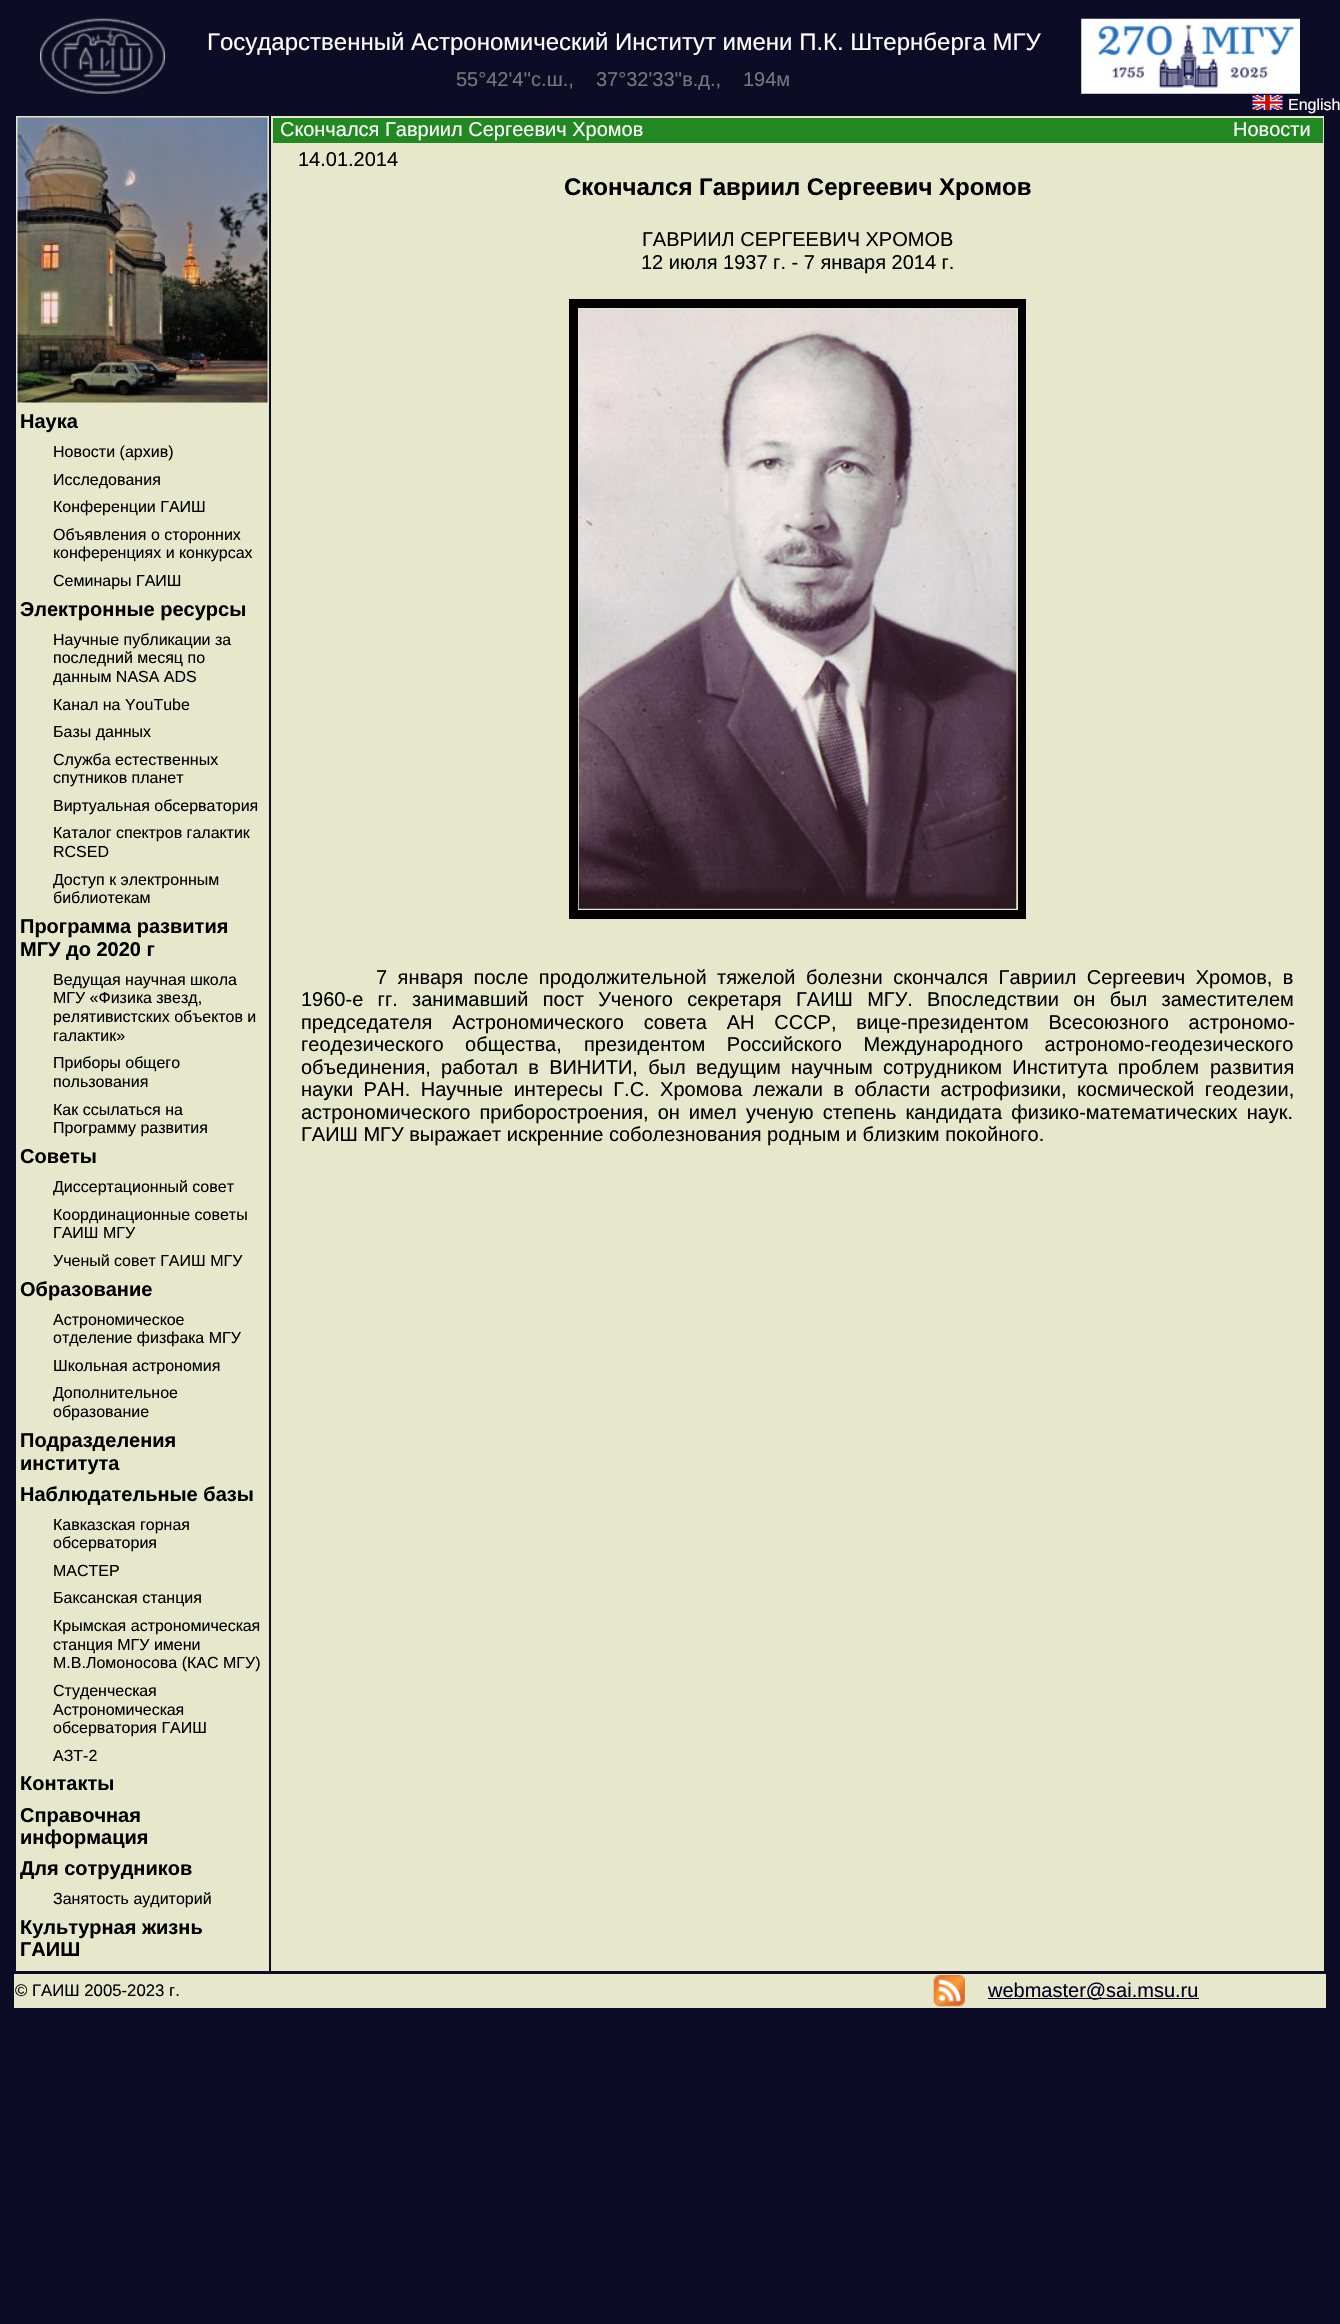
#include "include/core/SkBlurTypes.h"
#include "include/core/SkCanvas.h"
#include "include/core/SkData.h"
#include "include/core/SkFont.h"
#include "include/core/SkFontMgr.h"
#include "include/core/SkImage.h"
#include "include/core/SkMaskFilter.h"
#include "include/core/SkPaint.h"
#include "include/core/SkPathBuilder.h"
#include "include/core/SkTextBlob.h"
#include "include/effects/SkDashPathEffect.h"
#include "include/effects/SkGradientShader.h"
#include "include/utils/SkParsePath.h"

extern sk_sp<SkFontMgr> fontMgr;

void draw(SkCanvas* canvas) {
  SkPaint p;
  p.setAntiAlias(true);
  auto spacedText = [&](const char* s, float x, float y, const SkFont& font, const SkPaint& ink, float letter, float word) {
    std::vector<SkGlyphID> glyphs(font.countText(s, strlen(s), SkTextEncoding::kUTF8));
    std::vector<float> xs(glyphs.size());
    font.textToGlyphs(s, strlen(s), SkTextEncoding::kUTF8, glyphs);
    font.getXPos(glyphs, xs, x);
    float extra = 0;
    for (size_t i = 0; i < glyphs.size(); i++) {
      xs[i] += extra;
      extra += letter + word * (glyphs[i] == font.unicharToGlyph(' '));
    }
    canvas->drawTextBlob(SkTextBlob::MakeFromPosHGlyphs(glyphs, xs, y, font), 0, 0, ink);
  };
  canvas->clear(SkColorSetRGB(12, 12, 39));
  canvas->drawImageRect(SkImages::DeferredFromEncodedData(SkData::MakeFromFileName("images/1.png")), SkRect::MakeLTRB(40, 18, 165, 94), SkSamplingOptions());
  canvas->drawImageRect(SkImages::DeferredFromEncodedData(SkData::MakeFromFileName("images/2.png")), SkRect::MakeLTRB(1081, 18, 1300, 94), SkSamplingOptions());
  canvas->drawImageRect(SkImages::DeferredFromEncodedData(SkData::MakeFromFileName("images/3.png")), SkRect::MakeLTRB(1252, 95, 1283, 110), SkSamplingOptions());
  p.setColor(SkColorSetRGB(231, 231, 204));
  canvas->drawRect(SkRect::MakeLTRB(16, 116, 269, 1971), p);
  canvas->drawImageRect(SkImages::DeferredFromEncodedData(SkData::MakeFromFileName("images/4.png")), SkRect::MakeLTRB(17, 117, 268, 403), SkSamplingOptions());
  canvas->drawRect(SkRect::MakeLTRB(271, 116, 1324, 1971), p);
  p.setColor(SkColorSetRGB(34, 136, 34));
  canvas->drawRect(SkRect::MakeLTRB(273, 118, 1323, 143), p);
  p.setColor(SK_ColorBLACK);
  canvas->drawRect(SkRect::MakeLTRB(578, 299, 1018, 308), p);
  canvas->drawRect(SkRect::MakeLTRB(1018, 299, 1026, 910), p);
  canvas->drawRect(SkRect::MakeLTRB(578, 910, 1026, 919), p);
  canvas->drawRect(SkRect::MakeLTRB(569, 299, 578, 919), p);
  canvas->drawImageRect(SkImages::DeferredFromEncodedData(SkData::MakeFromFileName("images/5.png")), SkRect::MakeLTRB(578, 308, 1017, 909), SkSamplingOptions());
  p.setColor(SkColorSetRGB(231, 231, 204));
  canvas->drawRect(SkRect::MakeLTRB(14, 1974, 1326, 2008), p);
  canvas->drawImageRect(SkImages::DeferredFromEncodedData(SkData::MakeFromFileName("images/6.png")), SkRect::MakeLTRB(933, 1975, 965, 2007), SkSamplingOptions());
  p.setColor(SkColorSetRGB(0, 0, 39));
  canvas->drawRect(SkRect::MakeLTRB(988, 1998, 1199, 1999), p);
  SkFont font1(fontMgr->matchFamilyStyle("Liberation Sans", SkFontStyle::Normal()), 24);
  font1.setSubpixel(true);
  p.setColor(SK_ColorWHITE);
  canvas->drawString("Государственный Астрономический Институт имени П.К. Штернберга МГУ", 207, 50, font1, p);
  SkFont font2(fontMgr->matchFamilyStyle("Liberation Sans", SkFontStyle::Normal()), 20);
  font2.setSubpixel(true);
  p.setColor(SkColorSetRGB(119, 119, 119));
  canvas->drawString("55°42'4''с.ш.,", 456, 86, font2, p);
  canvas->drawString("37°32'33''в.д.,", 596, 86, font2, p);
  canvas->drawString("194м", 743, 86, font2, p);
  SkFont font3(fontMgr->matchFamilyStyle("Liberation Sans", SkFontStyle::Normal()), 16);
  font3.setSubpixel(true);
  p.setColor(SK_ColorWHITE);
  canvas->drawString("English", 1288, 110, font3, p);
  SkFont font4(fontMgr->matchFamilyStyle("Liberation Sans", SkFontStyle::Bold()), 20);
  font4.setSubpixel(true);
  p.setColor(SK_ColorBLACK);
  canvas->drawString("Наука", 20, 428, font4, p);
  canvas->drawString("Новости (архив)", 53, 457, font3, p);
  canvas->drawString("Исследования", 53, 485, font3, p);
  canvas->drawString("Конференции ГАИШ", 53, 512, font3, p);
  canvas->drawString("Объявления о сторонних", 53, 540, font3, p);
  canvas->drawString("конференциях и конкурсах", 53, 558, font3, p);
  canvas->drawString("Семинары ГАИШ", 53, 586, font3, p);
  canvas->drawString("Электронные ресурсы", 20, 616, font4, p);
  canvas->drawString("Научные публикации за", 53, 645, font3, p);
  canvas->drawString("последний месяц по", 53, 663, font3, p);
  canvas->drawString("данным NASA ADS", 53, 682, font3, p);
  canvas->drawString("Канал на YouTube", 53, 710, font3, p);
  canvas->drawString("Базы данных", 53, 737, font3, p);
  canvas->drawString("Служба естественных", 53, 765, font3, p);
  canvas->drawString("спутников планет", 53, 783, font3, p);
  canvas->drawString("Виртуальная обсерватория", 53, 811, font3, p);
  canvas->drawString("Каталог спектров галактик", 53, 838, font3, p);
  canvas->drawString("RCSED", 53, 857, font3, p);
  canvas->drawString("Доступ к электронным", 53, 885, font3, p);
  canvas->drawString("библиотекам", 53, 903, font3, p);
  canvas->drawString("Программа развития", 20, 933, font4, p);
  canvas->drawString("МГУ до 2020 г", 20, 956, font4, p);
  canvas->drawString("Ведущая научная школа", 53, 985, font3, p);
  canvas->drawString("МГУ «Физика звезд,", 53, 1003, font3, p);
  canvas->drawString("релятивистских объектов и", 53, 1022, font3, p);
  canvas->drawString("галактик»", 53, 1041, font3, p);
  canvas->drawString("Приборы общего", 53, 1068, font3, p);
  canvas->drawString("пользования", 53, 1087, font3, p);
  canvas->drawString("Как ссылаться на", 53, 1115, font3, p);
  canvas->drawString("Программу развития", 53, 1133, font3, p);
  canvas->drawString("Советы", 20, 1163, font4, p);
  canvas->drawString("Диссертационный совет", 53, 1192, font3, p);
  canvas->drawString("Координационные советы", 53, 1220, font3, p);
  canvas->drawString("ГАИШ МГУ", 53, 1238, font3, p);
  canvas->drawString("Ученый совет ГАИШ МГУ", 53, 1266, font3, p);
  canvas->drawString("Образование", 20, 1296, font4, p);
  canvas->drawString("Астрономическое", 53, 1325, font3, p);
  canvas->drawString("отделение физфака МГУ", 53, 1343, font3, p);
  canvas->drawString("Школьная астрономия", 53, 1371, font3, p);
  canvas->drawString("Дополнительное", 53, 1398, font3, p);
  canvas->drawString("образование", 53, 1417, font3, p);
  canvas->drawString("Подразделения", 20, 1447, font4, p);
  canvas->drawString("института", 20, 1470, font4, p);
  canvas->drawString("Наблюдательные базы", 20, 1501, font4, p);
  canvas->drawString("Кавказская горная", 53, 1530, font3, p);
  canvas->drawString("обсерватория", 53, 1548, font3, p);
  canvas->drawString("МАСТЕР", 53, 1576, font3, p);
  canvas->drawString("Баксанская станция", 53, 1603, font3, p);
  canvas->drawString("Крымская астрономическая", 53, 1631, font3, p);
  canvas->drawString("станция МГУ имени", 53, 1650, font3, p);
  canvas->drawString("М.В.Ломоносова (КАС МГУ)", 53, 1668, font3, p);
  canvas->drawString("Студенческая", 53, 1696, font3, p);
  canvas->drawString("Астрономическая", 53, 1715, font3, p);
  canvas->drawString("обсерватория ГАИШ", 53, 1733, font3, p);
  canvas->drawString("АЗТ-2", 53, 1761, font3, p);
  canvas->drawString("Контакты", 20, 1790, font4, p);
  canvas->drawString("Справочная", 20, 1822, font4, p);
  canvas->drawString("информация", 20, 1844, font4, p);
  canvas->drawString("Для сотрудников", 20, 1875, font4, p);
  canvas->drawString("Занятость аудиторий", 53, 1904, font3, p);
  canvas->drawString("Культурная жизнь", 20, 1934, font4, p);
  canvas->drawString("ГАИШ", 20, 1956, font4, p);
  p.setColor(SK_ColorWHITE);
  canvas->drawString("Скончался Гавриил Сергеевич Хромов", 280, 136, font2, p);
  canvas->drawString("Новости", 1233, 136, font2, p);
  p.setColor(SK_ColorBLACK);
  canvas->drawString("14.01.2014", 298, 166, font2, p);
  SkFont font5(fontMgr->matchFamilyStyle("Liberation Sans", SkFontStyle::Bold()), 24);
  font5.setSubpixel(true);
  canvas->drawString("Скончался Гавриил Сергеевич Хромов", 564, 195, font5, p);
  canvas->drawString("ГАВРИИЛ СЕРГЕЕВИЧ ХРОМОВ", 642, 246, font2, p);
  canvas->drawString("12 июля 1937 г. - 7 января 2014 г.", 641, 269, font2, p);
  spacedText("7 января после продолжительной тяжелой болезни скончался Гавриил Сергеевич Хромов, в", 376, 984, font2, p, 0, 4.9f);
  spacedText("1960-е гг. занимавший пост Ученого секретаря ГАИШ МГУ.", 301, 1006, font2, p, 0, 8.75f);
  spacedText("Впоследствии он был заместителем", 927, 1006, font2, p, 0, 8.75f);
  spacedText("председателя Астрономического совета АН СССР, вице-президентом Всесоюзного астрономо-", 301, 1029, font2, p, 0, 14.25f);
  spacedText("геодезического общества,", 301, 1051, font2, p, 0, 16);
  spacedText("президентом Российского Международного астрономо-геодезического", 584, 1051, font2, p, 0, 16);
  spacedText("объединения, работал в ВИНИТИ, был ведущим научным сотрудником Института проблем", 301, 1074, font2, p, 0, 4.75f);
  canvas->drawString("развития", 1210, 1074, font2, p);
  spacedText("науки РАН. Научные интересы Г.С. Хромова лежали в области астрофизики, космической геодезии,", 301, 1096, font2, p, 0, 4.9f);
  spacedText("астрономического приборостроения, он имел", 301, 1119, font2, p, 0, 3.5f);
  spacedText("ученую степень кандидата физико-математических наук.", 746, 1119, font2, p, 0, 3.5f);
  canvas->drawString("ГАИШ МГУ выражает искренние соболезнования родным и близким покойного.", 301, 1141, font2, p);
  SkFont font6(fontMgr->matchFamilyStyle("Liberation Sans", SkFontStyle::Normal()), 16.75f);
  font6.setSubpixel(true);
  canvas->drawString("© ГАИШ 2005-2023 г.", 15, 1996, font6, p);
  p.setColor(SkColorSetRGB(0, 0, 39));
  canvas->drawString("webmaster@sai.msu.ru", 988, 1997, font2, p);
}
